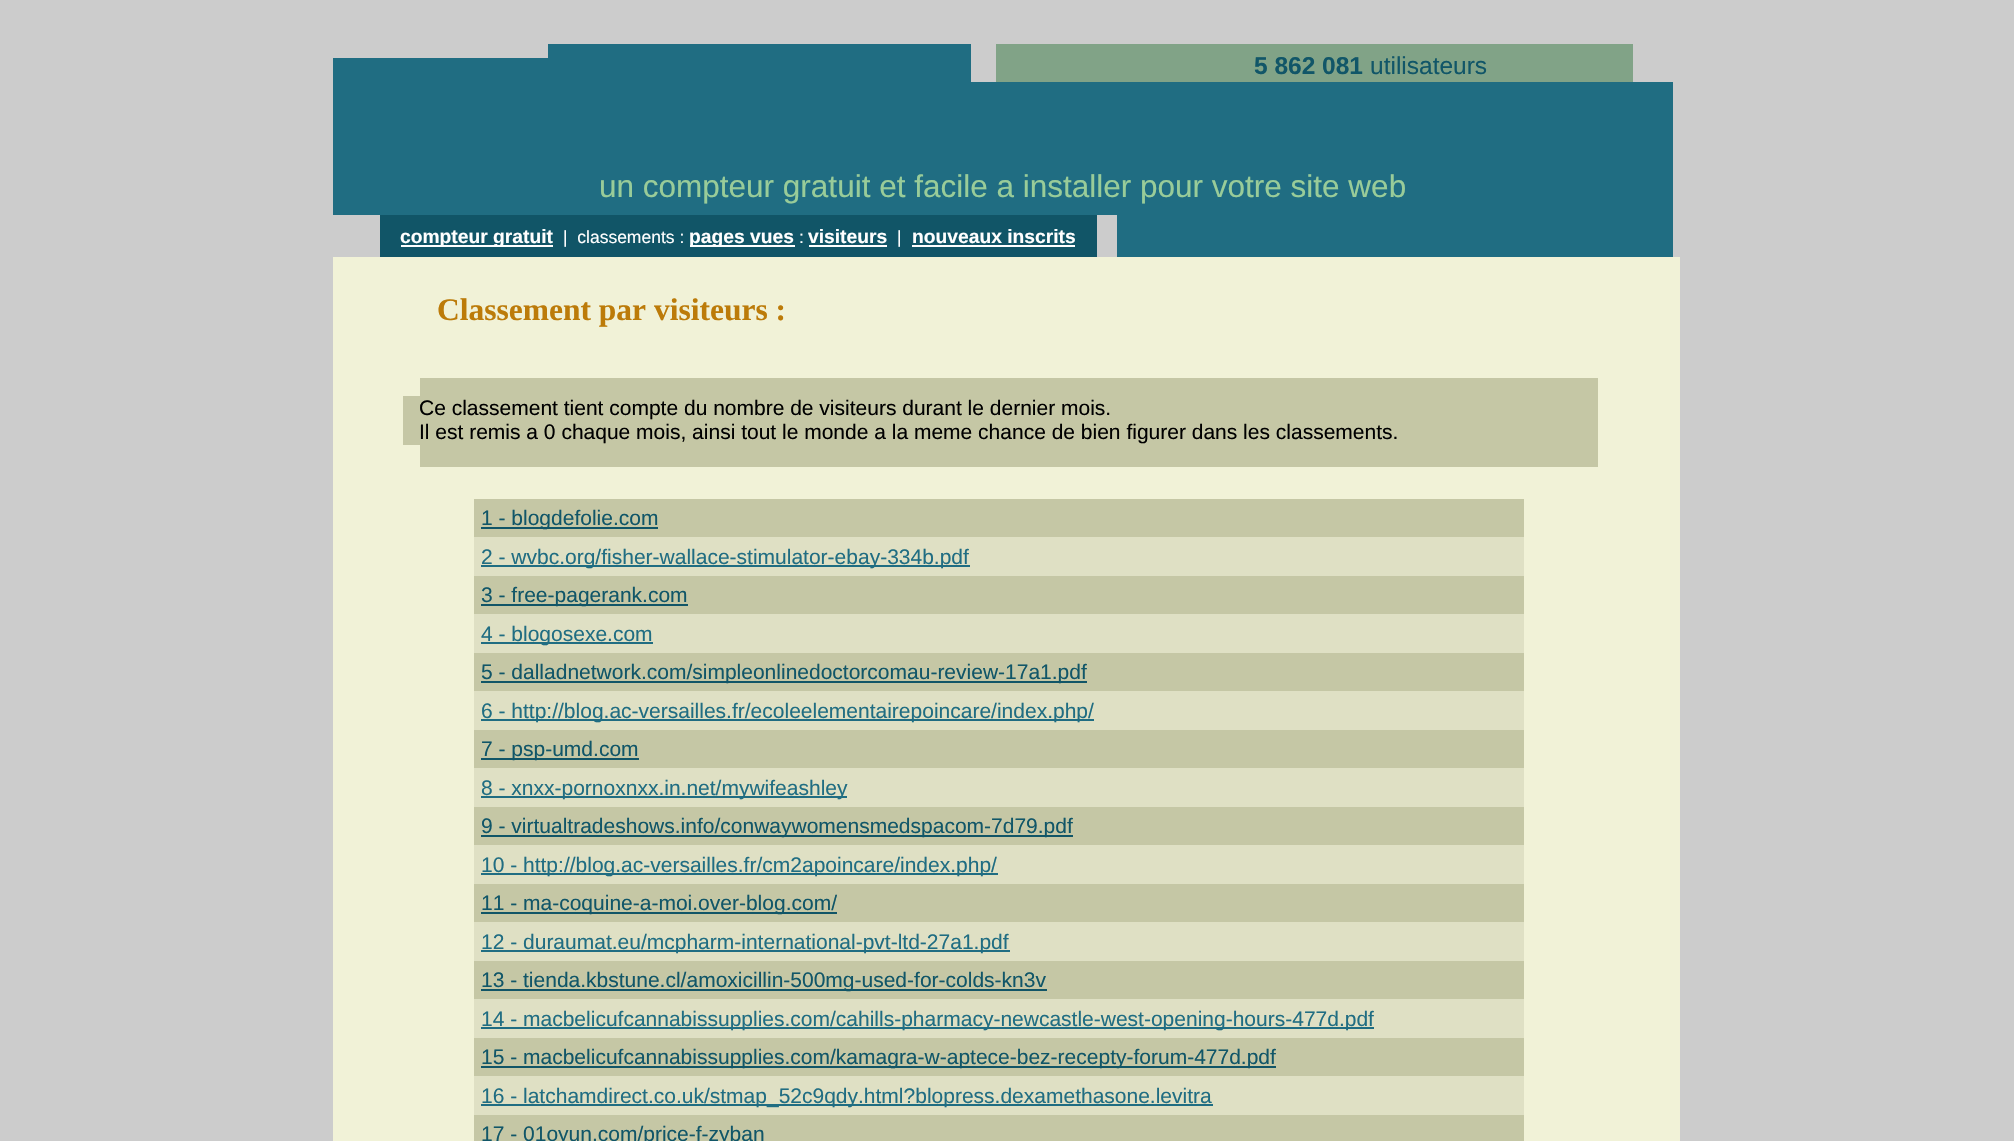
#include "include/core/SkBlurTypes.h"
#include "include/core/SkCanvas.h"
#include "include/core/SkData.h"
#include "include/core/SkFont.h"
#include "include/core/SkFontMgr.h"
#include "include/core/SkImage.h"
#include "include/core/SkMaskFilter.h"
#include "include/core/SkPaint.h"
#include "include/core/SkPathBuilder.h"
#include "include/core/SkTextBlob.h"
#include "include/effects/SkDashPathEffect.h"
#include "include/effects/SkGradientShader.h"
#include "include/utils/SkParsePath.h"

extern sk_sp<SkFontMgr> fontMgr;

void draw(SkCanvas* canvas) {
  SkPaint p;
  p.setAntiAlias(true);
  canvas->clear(SkColorSetRGB(204, 204, 204));
  p.setColor(SkColorSetRGB(32, 109, 130));
  canvas->drawRect(SkRect::MakeLTRB(333, 58, 548, 215), p);
  canvas->drawRect(SkRect::MakeLTRB(548, 44, 971, 82), p);
  p.setColor(SkColorSetRGB(129, 163, 135));
  canvas->drawRect(SkRect::MakeLTRB(996, 44, 1633, 82), p);
  p.setColor(SkColorSetRGB(32, 109, 130));
  canvas->drawRect(SkRect::MakeLTRB(548, 82, 1673, 215), p);
  p.setColor(SkColorSetRGB(17, 85, 103));
  canvas->drawRect(SkRect::MakeLTRB(380, 215, 1097, 257), p);
  p.setColor(SK_ColorWHITE);
  canvas->drawRect(SkRect::MakeLTRB(401, 245, 553, 247), p);
  canvas->drawRect(SkRect::MakeLTRB(690, 245, 795, 247), p);
  canvas->drawRect(SkRect::MakeLTRB(809, 245, 887, 247), p);
  canvas->drawRect(SkRect::MakeLTRB(912, 245, 1075, 247), p);
  p.setColor(SkColorSetRGB(32, 109, 130));
  canvas->drawRect(SkRect::MakeLTRB(1117, 215, 1673, 257), p);
  p.setColor(SkColorSetRGB(241, 242, 215));
  canvas->drawRect(SkRect::MakeLTRB(333, 257, 1680, 1141), p);
  p.setColor(SkColorSetRGB(197, 199, 165));
  canvas->drawRect(SkRect::MakeLTRB(420, 378, 1598, 396), p);
  canvas->drawRect(SkRect::MakeLTRB(403, 396, 1598, 445), p);
  canvas->drawRect(SkRect::MakeLTRB(420, 445, 1598, 467), p);
  canvas->drawRect(SkRect::MakeLTRB(474, 499, 1524, 537), p);
  p.setColor(SkColorSetRGB(17, 85, 103));
  canvas->drawRect(SkRect::MakeLTRB(481, 527, 658, 529), p);
  p.setColor(SkColorSetRGB(223, 224, 196));
  canvas->drawRect(SkRect::MakeLTRB(474, 537, 1524, 576), p);
  p.setColor(SkColorSetRGB(32, 109, 130));
  canvas->drawRect(SkRect::MakeLTRB(481, 565, 970, 567), p);
  p.setColor(SkColorSetRGB(197, 199, 165));
  canvas->drawRect(SkRect::MakeLTRB(474, 576, 1524, 614), p);
  p.setColor(SkColorSetRGB(17, 85, 103));
  canvas->drawRect(SkRect::MakeLTRB(481, 604, 688, 606), p);
  p.setColor(SkColorSetRGB(223, 224, 196));
  canvas->drawRect(SkRect::MakeLTRB(474, 614, 1524, 653), p);
  p.setColor(SkColorSetRGB(32, 109, 130));
  canvas->drawRect(SkRect::MakeLTRB(481, 642, 653, 644), p);
  p.setColor(SkColorSetRGB(197, 199, 165));
  canvas->drawRect(SkRect::MakeLTRB(474, 653, 1524, 691), p);
  p.setColor(SkColorSetRGB(17, 85, 103));
  canvas->drawRect(SkRect::MakeLTRB(481, 681, 1087, 683), p);
  p.setColor(SkColorSetRGB(223, 224, 196));
  canvas->drawRect(SkRect::MakeLTRB(474, 691, 1524, 730), p);
  p.setColor(SkColorSetRGB(32, 109, 130));
  canvas->drawRect(SkRect::MakeLTRB(481, 719, 1094, 721), p);
  p.setColor(SkColorSetRGB(197, 199, 165));
  canvas->drawRect(SkRect::MakeLTRB(474, 730, 1524, 768), p);
  p.setColor(SkColorSetRGB(17, 85, 103));
  canvas->drawRect(SkRect::MakeLTRB(481, 758, 639, 760), p);
  p.setColor(SkColorSetRGB(223, 224, 196));
  canvas->drawRect(SkRect::MakeLTRB(474, 768, 1524, 807), p);
  p.setColor(SkColorSetRGB(32, 109, 130));
  canvas->drawRect(SkRect::MakeLTRB(481, 796, 847, 798), p);
  p.setColor(SkColorSetRGB(197, 199, 165));
  canvas->drawRect(SkRect::MakeLTRB(474, 807, 1524, 845), p);
  p.setColor(SkColorSetRGB(17, 85, 103));
  canvas->drawRect(SkRect::MakeLTRB(481, 835, 1073, 837), p);
  p.setColor(SkColorSetRGB(223, 224, 196));
  canvas->drawRect(SkRect::MakeLTRB(474, 845, 1524, 884), p);
  p.setColor(SkColorSetRGB(32, 109, 130));
  canvas->drawRect(SkRect::MakeLTRB(481, 873, 998, 875), p);
  p.setColor(SkColorSetRGB(197, 199, 165));
  canvas->drawRect(SkRect::MakeLTRB(474, 884, 1524, 922), p);
  p.setColor(SkColorSetRGB(17, 85, 103));
  canvas->drawRect(SkRect::MakeLTRB(481, 912, 837, 914), p);
  p.setColor(SkColorSetRGB(223, 224, 196));
  canvas->drawRect(SkRect::MakeLTRB(474, 922, 1524, 961), p);
  p.setColor(SkColorSetRGB(32, 109, 130));
  canvas->drawRect(SkRect::MakeLTRB(481, 950, 1010, 952), p);
  p.setColor(SkColorSetRGB(197, 199, 165));
  canvas->drawRect(SkRect::MakeLTRB(474, 961, 1524, 999), p);
  p.setColor(SkColorSetRGB(17, 85, 103));
  canvas->drawRect(SkRect::MakeLTRB(481, 989, 1047, 991), p);
  p.setColor(SkColorSetRGB(223, 224, 196));
  canvas->drawRect(SkRect::MakeLTRB(474, 999, 1524, 1038), p);
  p.setColor(SkColorSetRGB(32, 109, 130));
  canvas->drawRect(SkRect::MakeLTRB(481, 1027, 1374, 1029), p);
  p.setColor(SkColorSetRGB(197, 199, 165));
  canvas->drawRect(SkRect::MakeLTRB(474, 1038, 1524, 1076), p);
  p.setColor(SkColorSetRGB(17, 85, 103));
  canvas->drawRect(SkRect::MakeLTRB(481, 1066, 1276, 1068), p);
  p.setColor(SkColorSetRGB(223, 224, 196));
  canvas->drawRect(SkRect::MakeLTRB(474, 1076, 1524, 1115), p);
  p.setColor(SkColorSetRGB(32, 109, 130));
  canvas->drawRect(SkRect::MakeLTRB(481, 1104, 1213, 1106), p);
  p.setColor(SkColorSetRGB(197, 199, 165));
  canvas->drawRect(SkRect::MakeLTRB(474, 1115, 1524, 1141), p);
  SkFont font1(fontMgr->matchFamilyStyle("Liberation Sans", SkFontStyle::Bold()), 24.5f);
  font1.setSubpixel(true);
  p.setColor(SkColorSetRGB(17, 86, 104));
  canvas->drawString("5 862 081", 1254, 74, font1, p);
  SkFont font2(fontMgr->matchFamilyStyle("Liberation Sans", SkFontStyle::Normal()), 24.5f);
  font2.setSubpixel(true);
  canvas->drawString("utilisateurs", 1370, 74, font2, p);
  SkFont font3(fontMgr->matchFamilyStyle("Liberation Sans", SkFontStyle::Normal()), 31.5f);
  font3.setSubpixel(true);
  p.setColor(SkColorSetRGB(153, 204, 153));
  canvas->drawString("un compteur gratuit et facile a installer pour votre site web", 599, 197, font3, p);
  SkFont font4(fontMgr->matchFamilyStyle("Liberation Sans", SkFontStyle::Bold()), 19.25f);
  font4.setSubpixel(true);
  p.setColor(SK_ColorWHITE);
  canvas->drawString("compteur gratuit", 400, 243, font4, p);
  SkFont font5(fontMgr->matchFamilyStyle("Liberation Sans", SkFontStyle::Normal()), 17.5f);
  font5.setSubpixel(true);
  canvas->drawString("|  classements :", 563, 243, font5, p);
  canvas->drawString("pages vues", 689, 243, font4, p);
  canvas->drawString(":", 799, 243, font5, p);
  canvas->drawString("visiteurs", 808, 243, font4, p);
  canvas->drawString("|", 897, 243, font5, p);
  canvas->drawString("nouveaux inscrits", 912, 243, font4, p);
  SkFont font6(fontMgr->matchFamilyStyle("Liberation Serif", SkFontStyle::Bold()), 31.5f);
  font6.setSubpixel(true);
  p.setColor(SkColorSetRGB(188, 123, 9));
  canvas->drawString("Classement par visiteurs :", 437, 320, font6, p);
  SkFont font7(fontMgr->matchFamilyStyle("Liberation Sans", SkFontStyle::Normal()), 21);
  font7.setSubpixel(true);
  p.setColor(SK_ColorBLACK);
  canvas->drawString("Ce classement tient compte du nombre de visiteurs durant le dernier mois.", 419, 415, font7, p);
  canvas->drawString("Il est remis a 0 chaque mois, ainsi tout le monde a la meme chance de bien figurer dans les classements.", 419, 439, font7, p);
  p.setColor(SkColorSetRGB(17, 86, 104));
  canvas->drawString("1 - blogdefolie.com", 481, 525, font7, p);
  p.setColor(SkColorSetRGB(32, 109, 130));
  canvas->drawString("2 - wvbc.org/fisher-wallace-stimulator-ebay-334b.pdf", 481, 564, font7, p);
  p.setColor(SkColorSetRGB(17, 86, 104));
  canvas->drawString("3 - free-pagerank.com", 481, 602, font7, p);
  p.setColor(SkColorSetRGB(32, 109, 130));
  canvas->drawString("4 - blogosexe.com", 481, 641, font7, p);
  p.setColor(SkColorSetRGB(17, 86, 104));
  canvas->drawString("5 - dalladnetwork.com/simpleonlinedoctorcomau-review-17a1.pdf", 481, 679, font7, p);
  p.setColor(SkColorSetRGB(32, 109, 130));
  canvas->drawString("6 - http://blog.ac-versailles.fr/ecoleelementairepoincare/index.php/", 481, 718, font7, p);
  p.setColor(SkColorSetRGB(17, 86, 104));
  canvas->drawString("7 - psp-umd.com", 481, 756, font7, p);
  p.setColor(SkColorSetRGB(32, 109, 130));
  canvas->drawString("8 - xnxx-pornoxnxx.in.net/mywifeashley", 481, 795, font7, p);
  p.setColor(SkColorSetRGB(17, 86, 104));
  canvas->drawString("9 - virtualtradeshows.info/conwaywomensmedspacom-7d79.pdf", 481, 833, font7, p);
  p.setColor(SkColorSetRGB(32, 109, 130));
  canvas->drawString("10 - http://blog.ac-versailles.fr/cm2apoincare/index.php/", 481, 872, font7, p);
  p.setColor(SkColorSetRGB(17, 86, 104));
  canvas->drawString("11 - ma-coquine-a-moi.over-blog.com/", 481, 910, font7, p);
  p.setColor(SkColorSetRGB(32, 109, 130));
  canvas->drawString("12 - duraumat.eu/mcpharm-international-pvt-ltd-27a1.pdf", 481, 949, font7, p);
  p.setColor(SkColorSetRGB(17, 86, 104));
  canvas->drawString("13 - tienda.kbstune.cl/amoxicillin-500mg-used-for-colds-kn3v", 481, 987, font7, p);
  p.setColor(SkColorSetRGB(32, 109, 130));
  canvas->drawString("14 - macbelicufcannabissupplies.com/cahills-pharmacy-newcastle-west-opening-hours-477d.pdf", 481, 1026, font7, p);
  p.setColor(SkColorSetRGB(17, 86, 104));
  canvas->drawString("15 - macbelicufcannabissupplies.com/kamagra-w-aptece-bez-recepty-forum-477d.pdf", 481, 1064, font7, p);
  p.setColor(SkColorSetRGB(32, 109, 130));
  canvas->drawString("16 - latchamdirect.co.uk/stmap_52c9qdy.html?blopress.dexamethasone.levitra", 481, 1103, font7, p);
  p.setColor(SkColorSetRGB(17, 86, 104));
  canvas->drawString("17 - 01oyun.com/price-f-zyban", 481, 1141, font7, p);
}
